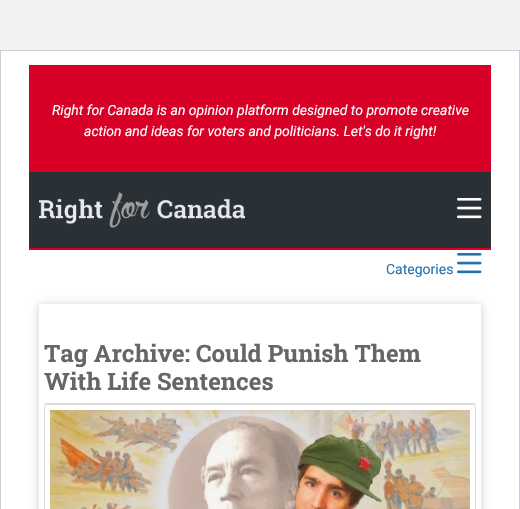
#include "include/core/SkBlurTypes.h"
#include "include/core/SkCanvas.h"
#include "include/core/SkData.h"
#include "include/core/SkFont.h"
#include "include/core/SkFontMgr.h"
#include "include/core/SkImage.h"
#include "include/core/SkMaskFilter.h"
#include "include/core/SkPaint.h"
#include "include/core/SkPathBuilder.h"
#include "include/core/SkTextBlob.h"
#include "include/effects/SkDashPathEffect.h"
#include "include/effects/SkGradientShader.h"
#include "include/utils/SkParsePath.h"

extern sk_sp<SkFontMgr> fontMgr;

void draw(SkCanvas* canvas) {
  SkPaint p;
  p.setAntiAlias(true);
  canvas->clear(SkColorSetRGB(241, 241, 241));
  p.setColor(SK_ColorWHITE);
  canvas->drawRect(SkRect::MakeLTRB(0.5f, 50.5f, 519.5f, 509.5f), p);
  p.setStyle(SkPaint::kStroke_Style);
  p.setStrokeWidth(1);
  p.setColor(SkColorSetRGB(204, 208, 212));
  canvas->drawRect(SkRect::MakeLTRB(0.5f, 50.5f, 519.5f, 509.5f), p);
  p.setStyle(SkPaint::kFill_Style);
  p.setColor(SkColorSetRGB(41, 49, 55));
  canvas->drawRect(SkRect::MakeLTRB(29, 172, 491, 248), p);
  p.setColor(SkColorSetRGB(216, 0, 39));
  canvas->drawRect(SkRect::MakeLTRB(29, 65, 491, 172), p);
  canvas->drawImageRect(SkImages::DeferredFromEncodedData(SkData::MakeFromFileName("images/1.png")), SkRect::MakeLTRB(39, 192, 245, 228), SkSamplingOptions());
  canvas->drawImageRect(SkImages::DeferredFromEncodedData(SkData::MakeFromFileName("images/2.png")), SkRect::MakeLTRB(457, 198, 482, 219), SkSamplingOptions());
  canvas->drawRect(SkRect::MakeLTRB(29, 248, 491, 250), p);
  canvas->drawImageRect(SkImages::DeferredFromEncodedData(SkData::MakeFromFileName("images/3.png")), SkRect::MakeLTRB(457, 253, 482, 274), SkSamplingOptions());
  canvas->save();
  canvas->clipPath(SkPathBuilder(SkPathFillType::kEvenOdd).moveTo(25, 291).lineTo(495, 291).lineTo(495, 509).lineTo(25, 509).close().moveTo(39, 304).lineTo(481, 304).lineTo(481, 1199).lineTo(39, 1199).close().detach(), true);
  p.setColor(SkColorSetARGB(38, 0, 0, 0));
  p.setMaskFilter(SkMaskFilter::MakeBlur(kNormal_SkBlurStyle, 4));
  canvas->drawRect(SkRect::MakeLTRB(38, 304, 482, 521), p);
  p.setMaskFilter(nullptr);
  canvas->restore();
  p.setColor(SkColorSetRGB(218, 218, 218));
  canvas->drawRect(SkRect::MakeLTRB(44, 403, 476, 404), p);
  p.setStyle(SkPaint::kStroke_Style);
  p.setColor(SkColorSetRGB(216, 216, 216));
  canvas->drawRoundRect(SkRect::MakeLTRB(44.5f, 404.5f, 475.5f, 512.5f), 2.5f, 2.5f, p);
  canvas->drawImageRect(SkImages::DeferredFromEncodedData(SkData::MakeFromFileName("images/4.png")), SkRect::MakeLTRB(50, 410, 470, 509), SkSamplingOptions());
  SkFont font1(fontMgr->matchFamilyStyle("Roboto", SkFontStyle::Italic()), 14);
  font1.setSubpixel(true);
  p.setStyle(SkPaint::kFill_Style);
  p.setColor(SK_ColorWHITE);
  canvas->drawString("Right for Canada is an opinion platform designed to promote creative", 52, 115, font1, p);
  canvas->drawString("action and ideas for voters and politicians. Let's do it right!", 84, 136, font1, p);
  SkFont font2(fontMgr->matchFamilyStyle("Roboto", SkFontStyle::Normal()), 14);
  font2.setSubpixel(true);
  p.setColor(SkColorSetRGB(34, 113, 177));
  canvas->drawString("Categories", 386, 274, font2, p);
  SkFont font3(fontMgr->matchFamilyStyle("Roboto Slab", SkFontStyle::Bold()), 24);
  font3.setSubpixel(true);
  p.setColor(SkColorSetRGB(102, 102, 102));
  canvas->drawString("Tag Archive: Could Punish Them", 44, 362, font3, p);
  canvas->drawString("With Life Sentences", 44, 390, font3, p);
}
